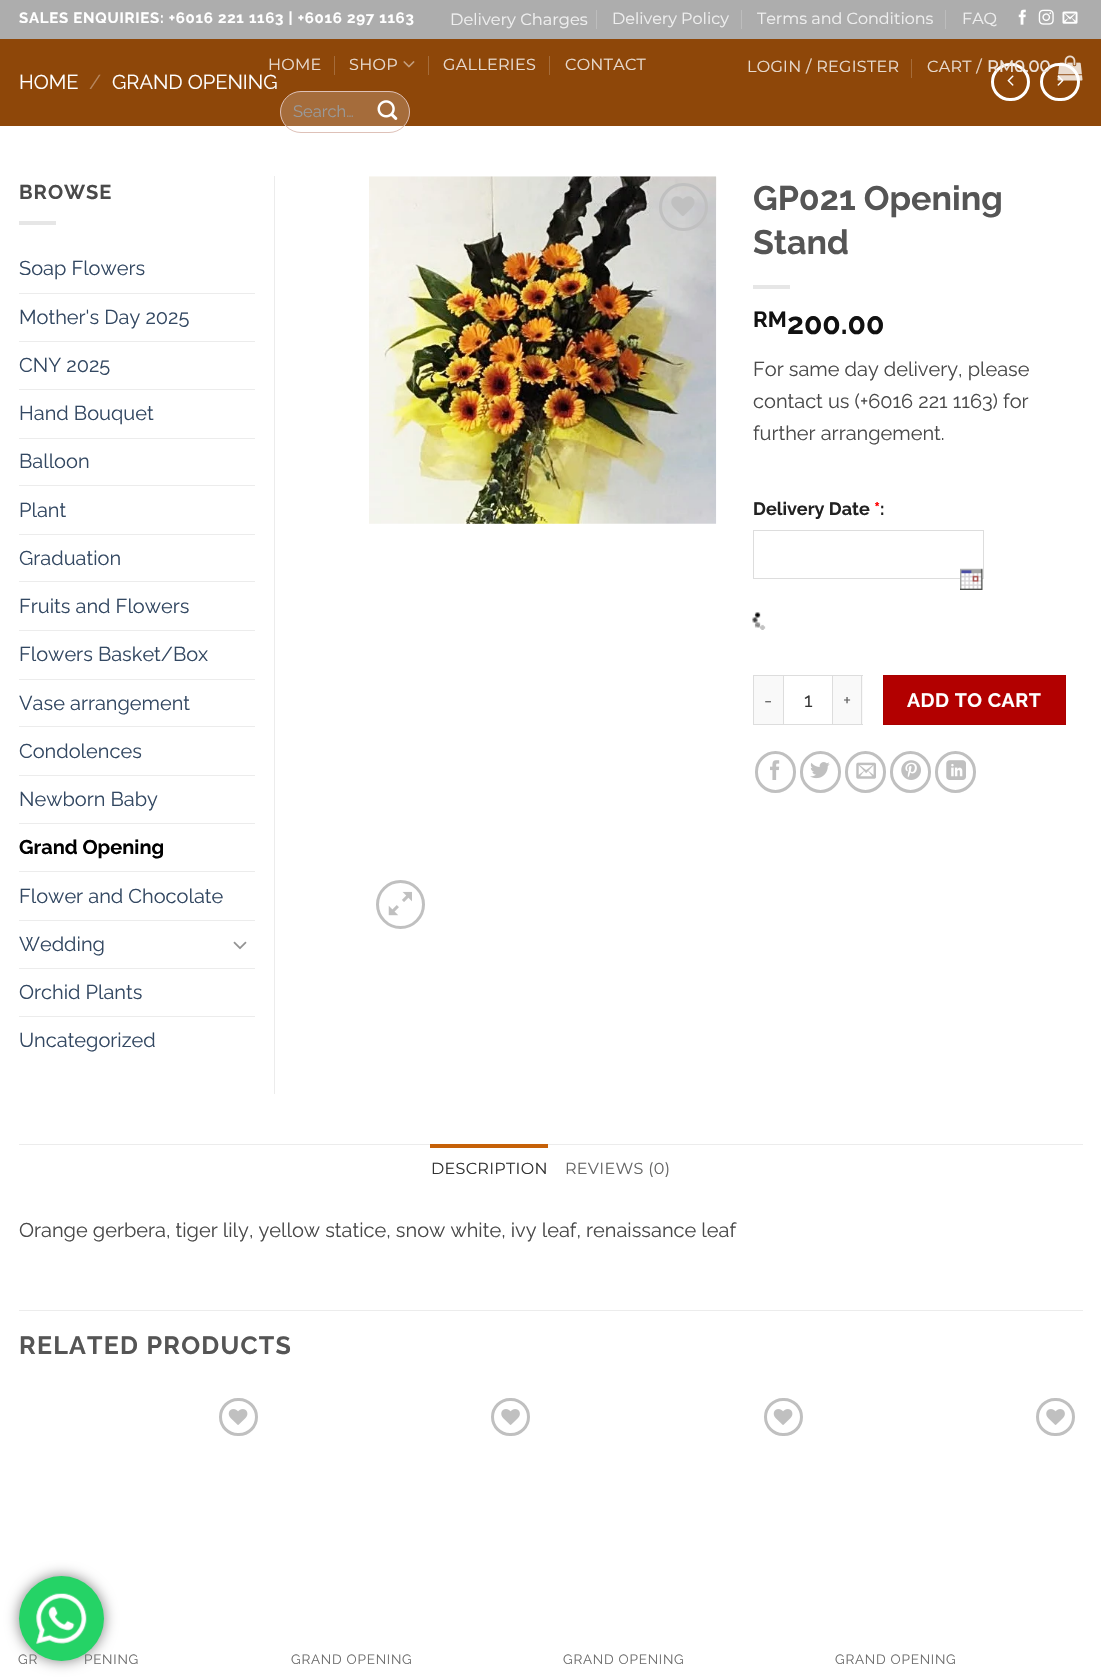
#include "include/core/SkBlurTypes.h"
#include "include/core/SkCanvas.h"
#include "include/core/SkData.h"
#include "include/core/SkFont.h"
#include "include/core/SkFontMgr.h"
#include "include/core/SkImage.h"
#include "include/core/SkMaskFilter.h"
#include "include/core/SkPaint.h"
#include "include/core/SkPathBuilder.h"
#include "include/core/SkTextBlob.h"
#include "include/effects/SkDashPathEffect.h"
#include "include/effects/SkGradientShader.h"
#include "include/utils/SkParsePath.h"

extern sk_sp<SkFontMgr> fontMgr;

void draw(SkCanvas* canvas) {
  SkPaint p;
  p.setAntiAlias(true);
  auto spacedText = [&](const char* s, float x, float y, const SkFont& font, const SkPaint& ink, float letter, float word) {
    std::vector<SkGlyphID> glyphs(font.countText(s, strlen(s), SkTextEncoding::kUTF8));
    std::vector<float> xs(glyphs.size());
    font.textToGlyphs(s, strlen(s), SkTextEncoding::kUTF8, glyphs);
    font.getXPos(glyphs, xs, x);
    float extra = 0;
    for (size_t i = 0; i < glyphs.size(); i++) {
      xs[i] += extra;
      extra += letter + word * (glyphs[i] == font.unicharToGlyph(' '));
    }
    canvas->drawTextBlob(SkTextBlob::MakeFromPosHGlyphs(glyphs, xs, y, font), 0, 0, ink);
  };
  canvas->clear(SK_ColorWHITE);
  p.setColor(SkColorSetRGB(173, 173, 173));
  canvas->drawRect(SkRect::MakeLTRB(0, 0, 1101, 39), p);
  p.setColor(SkColorSetRGB(189, 189, 189));
  canvas->drawRect(SkRect::MakeLTRB(596, 10, 597, 29), p);
  canvas->drawRect(SkRect::MakeLTRB(741, 10, 742, 29), p);
  canvas->drawRect(SkRect::MakeLTRB(945, 10, 946, 29), p);
  canvas->drawImageRect(SkImages::DeferredFromEncodedData(SkData::MakeFromFileName("images/1.png")), SkRect::MakeLTRB(1018, 9, 1026, 25), SkSamplingOptions());
  canvas->drawImageRect(SkImages::DeferredFromEncodedData(SkData::MakeFromFileName("images/2.png")), SkRect::MakeLTRB(1038, 9, 1054, 25), SkSamplingOptions());
  canvas->drawImageRect(SkImages::DeferredFromEncodedData(SkData::MakeFromFileName("images/3.png")), SkRect::MakeLTRB(1062, 11, 1078, 24), SkSamplingOptions());
  p.setColor(SkColorSetRGB(142, 71, 9));
  canvas->drawRect(SkRect::MakeLTRB(0, 39, 1101, 126), p);
  p.setColor(SkColorSetRGB(165, 108, 58));
  canvas->drawRect(SkRect::MakeLTRB(334, 56, 335, 75), p);
  canvas->drawImageRect(SkImages::DeferredFromEncodedData(SkData::MakeFromFileName("images/4.png")), SkRect::MakeLTRB(403, 61, 415, 68), SkSamplingOptions());
  canvas->drawRect(SkRect::MakeLTRB(428, 56, 429, 75), p);
  canvas->drawRect(SkRect::MakeLTRB(549, 56, 550, 75), p);
  p.setColor(SkColorSetARGB(51, 255, 255, 255));
  canvas->drawRoundRect(SkRect::MakeLTRB(280.5f, 91.5f, 409.5f, 132.5f), 20.5f, 20.5f, p);
  p.setStyle(SkPaint::kStroke_Style);
  p.setStrokeWidth(1);
  p.setColor(SkColorSetRGB(222, 193, 184));
  canvas->drawRoundRect(SkRect::MakeLTRB(280.5f, 91.5f, 409.5f, 132.5f), 20.5f, 20.5f, p);
  canvas->drawImageRect(SkImages::DeferredFromEncodedData(SkData::MakeFromFileName("images/5.png")), SkRect::MakeLTRB(377, 100, 398, 120), SkSamplingOptions());
  p.setStyle(SkPaint::kFill_Style);
  p.setColor(SkColorSetRGB(165, 108, 58));
  canvas->drawRect(SkRect::MakeLTRB(911, 59, 912, 78), p);
  p.setStyle(SkPaint::kStroke_Style);
  p.setStrokeWidth(3);
  p.setColor(SK_ColorWHITE);
  canvas->drawRoundRect(SkRect::MakeLTRB(1041.5f, 64.5f, 1078.5f, 99.5f), 17.5f, 17.5f, p);
  canvas->drawImageRect(SkImages::DeferredFromEncodedData(SkData::MakeFromFileName("images/8.png")), SkRect::MakeLTRB(1057, 75, 1064, 86), SkSamplingOptions());
  canvas->drawImageRect(SkImages::DeferredFromEncodedData(SkData::MakeFromFileName("images/6.png")), SkRect::MakeLTRB(1057, 55, 1083, 81), SkSamplingOptions());
  canvas->drawRoundRect(SkRect::MakeLTRB(992.5f, 64.5f, 1028.5f, 99.5f), 17.5f, 17.5f, p);
  canvas->drawImageRect(SkImages::DeferredFromEncodedData(SkData::MakeFromFileName("images/7.png")), SkRect::MakeLTRB(1007, 75, 1014, 86), SkSamplingOptions());
  p.setStyle(SkPaint::kFill_Style);
  p.setColor(SkColorSetRGB(236, 236, 236));
  canvas->drawRect(SkRect::MakeLTRB(274, 176, 275, 1094), p);
  p.setColor(SkColorSetRGB(230, 230, 230));
  canvas->drawRect(SkRect::MakeLTRB(19, 221, 56, 225), p);
  p.setColor(SkColorSetRGB(236, 236, 236));
  canvas->drawRect(SkRect::MakeLTRB(19, 293, 255, 294), p);
  canvas->drawRect(SkRect::MakeLTRB(19, 341, 255, 342), p);
  canvas->drawRect(SkRect::MakeLTRB(19, 389, 255, 390), p);
  canvas->drawRect(SkRect::MakeLTRB(19, 438, 255, 439), p);
  canvas->drawRect(SkRect::MakeLTRB(19, 485, 255, 486), p);
  canvas->drawRect(SkRect::MakeLTRB(19, 534, 255, 535), p);
  canvas->drawRect(SkRect::MakeLTRB(19, 581, 255, 582), p);
  canvas->drawRect(SkRect::MakeLTRB(19, 630, 255, 631), p);
  canvas->drawRect(SkRect::MakeLTRB(19, 679, 255, 680), p);
  canvas->drawRect(SkRect::MakeLTRB(19, 726, 255, 727), p);
  canvas->drawRect(SkRect::MakeLTRB(19, 775, 255, 776), p);
  canvas->drawRect(SkRect::MakeLTRB(19, 823, 255, 824), p);
  canvas->drawRect(SkRect::MakeLTRB(19, 871, 255, 872), p);
  canvas->drawRect(SkRect::MakeLTRB(19, 920, 255, 921), p);
  canvas->drawImageRect(SkImages::DeferredFromEncodedData(SkData::MakeFromFileName("images/9.png")), SkRect::MakeLTRB(233, 941, 247, 950), SkSamplingOptions());
  canvas->drawRect(SkRect::MakeLTRB(19, 968, 255, 969), p);
  canvas->drawRect(SkRect::MakeLTRB(19, 1016, 255, 1017), p);
  canvas->drawImageRect(SkImages::DeferredFromEncodedData(SkData::MakeFromFileName("images/10.png")), SkRect::MakeLTRB(369, 176, 717, 524), SkSamplingOptions());
  canvas->drawImageRect(SkImages::DeferredFromEncodedData(SkData::MakeFromFileName("images/11.png")), SkRect::MakeLTRB(716, 177, 717, 200), SkSamplingOptions());
  p.setStyle(SkPaint::kStroke_Style);
  p.setColor(SkColorSetRGB(192, 192, 192));
  canvas->drawRoundRect(SkRect::MakeLTRB(660.5f, 184.5f, 706.5f, 229.5f), 22.5f, 22.5f, p);
  canvas->drawImageRect(SkImages::DeferredFromEncodedData(SkData::MakeFromFileName("images/12.png")), SkRect::MakeLTRB(671, 196, 695, 216), SkSamplingOptions());
  canvas->drawCircle(400.5f, 904.5f, 23, p);
  canvas->drawImageRect(SkImages::DeferredFromEncodedData(SkData::MakeFromFileName("images/13.png")), SkRect::MakeLTRB(388, 891, 412, 916), SkSamplingOptions());
  p.setStyle(SkPaint::kFill_Style);
  p.setColor(SkColorSetRGB(230, 230, 230));
  canvas->drawRect(SkRect::MakeLTRB(753, 285, 790, 289), p);
  p.setStyle(SkPaint::kStroke_Style);
  p.setStrokeWidth(1);
  p.setColor(SkColorSetRGB(221, 221, 221));
  canvas->drawRect(SkRect::MakeLTRB(753.5f, 530.5f, 983.5f, 578.5f), p);
  canvas->drawImageRect(SkImages::DeferredFromEncodedData(SkData::MakeFromFileName("images/14.png")), SkRect::MakeLTRB(960, 568, 983, 590), SkSamplingOptions());
  canvas->drawImageRect(SkImages::DeferredFromEncodedData(SkData::MakeFromFileName("images/15.png")), SkRect::MakeLTRB(752, 612, 766, 630), SkSamplingOptions());
  p.setStyle(SkPaint::kFill_Style);
  p.setColor(SkColorSetRGB(249, 249, 249));
  canvas->drawRect(SkRect::MakeLTRB(754, 676, 783, 724), p);
  p.setColor(SkColorSetRGB(221, 221, 221));
  canvas->drawRect(SkRect::MakeLTRB(753, 675, 783, 676), p);
  canvas->drawRect(SkRect::MakeLTRB(753, 724, 783, 725), p);
  canvas->drawRect(SkRect::MakeLTRB(753, 675, 754, 725), p);
  p.setStyle(SkPaint::kStroke_Style);
  canvas->drawRect(SkRect::MakeLTRB(783.5f, 675.5f, 832.5f, 724.5f), p);
  p.setStyle(SkPaint::kFill_Style);
  p.setColor(SkColorSetRGB(249, 249, 249));
  canvas->drawRect(SkRect::MakeLTRB(833, 676, 863, 724), p);
  p.setColor(SkColorSetRGB(221, 221, 221));
  canvas->drawRect(SkRect::MakeLTRB(833, 675, 863, 676), p);
  canvas->drawRect(SkRect::MakeLTRB(861, 675, 862, 725), p);
  canvas->drawRect(SkRect::MakeLTRB(833, 724, 863, 725), p);
  p.setColor(SkColorSetRGB(178, 0, 0));
  canvas->drawRect(SkRect::MakeLTRB(883.5f, 675.5f, 1065.5f, 724.5f), p);
  p.setStyle(SkPaint::kStroke_Style);
  p.setColor(SkColorSetRGB(169, 0, 0));
  canvas->drawRect(SkRect::MakeLTRB(883.5f, 675.5f, 1065.5f, 724.5f), p);
  p.setStrokeWidth(3);
  p.setColor(SkColorSetRGB(192, 192, 192));
  canvas->drawRoundRect(SkRect::MakeLTRB(756.5f, 752.5f, 794.5f, 791.5f), 19, 19, p);
  canvas->drawImageRect(SkImages::DeferredFromEncodedData(SkData::MakeFromFileName("images/16.png")), SkRect::MakeLTRB(770, 760, 780, 780), SkSamplingOptions());
  canvas->drawRoundRect(SkRect::MakeLTRB(801.5f, 752.5f, 839.5f, 791.5f), 19, 19, p);
  canvas->drawImageRect(SkImages::DeferredFromEncodedData(SkData::MakeFromFileName("images/17.png")), SkRect::MakeLTRB(810, 762, 830, 779), SkSamplingOptions());
  canvas->drawRoundRect(SkRect::MakeLTRB(846.5f, 752.5f, 884.5f, 791.5f), 19, 19, p);
  canvas->drawImageRect(SkImages::DeferredFromEncodedData(SkData::MakeFromFileName("images/18.png")), SkRect::MakeLTRB(856, 762, 876, 779), SkSamplingOptions());
  canvas->drawRoundRect(SkRect::MakeLTRB(891.5f, 752.5f, 929.5f, 791.5f), 19, 19, p);
  canvas->drawImageRect(SkImages::DeferredFromEncodedData(SkData::MakeFromFileName("images/19.png")), SkRect::MakeLTRB(901, 760, 921, 780), SkSamplingOptions());
  canvas->drawRoundRect(SkRect::MakeLTRB(936.5f, 752.5f, 974.5f, 791.5f), 19, 19, p);
  canvas->drawImageRect(SkImages::DeferredFromEncodedData(SkData::MakeFromFileName("images/20.png")), SkRect::MakeLTRB(946, 760, 966, 780), SkSamplingOptions());
  p.setStyle(SkPaint::kFill_Style);
  p.setColor(SkColorSetRGB(236, 236, 236));
  canvas->drawRect(SkRect::MakeLTRB(19, 1144, 1083, 1145), p);
  p.setColor(SkColorSetRGB(198, 97, 8));
  canvas->drawRect(SkRect::MakeLTRB(430, 1144, 548, 1148), p);
  p.setColor(SkColorSetRGB(236, 236, 236));
  canvas->drawRect(SkRect::MakeLTRB(19, 1310, 1083, 1311), p);
  p.setStyle(SkPaint::kStroke_Style);
  p.setColor(SkColorSetRGB(192, 192, 192));
  canvas->drawRoundRect(SkRect::MakeLTRB(220.5f, 1399.5f, 256.5f, 1434.5f), 17.5f, 17.5f, p);
  canvas->drawImageRect(SkImages::DeferredFromEncodedData(SkData::MakeFromFileName("images/21.png")), SkRect::MakeLTRB(228, 1409, 248, 1425), SkSamplingOptions());
  canvas->drawRoundRect(SkRect::MakeLTRB(492.5f, 1399.5f, 528.5f, 1434.5f), 17.5f, 17.5f, p);
  canvas->drawImageRect(SkImages::DeferredFromEncodedData(SkData::MakeFromFileName("images/22.png")), SkRect::MakeLTRB(501, 1409, 520, 1425), SkSamplingOptions());
  canvas->drawRoundRect(SkRect::MakeLTRB(765.5f, 1399.5f, 801.5f, 1434.5f), 17.5f, 17.5f, p);
  canvas->drawImageRect(SkImages::DeferredFromEncodedData(SkData::MakeFromFileName("images/21.png")), SkRect::MakeLTRB(773, 1409, 793, 1425), SkSamplingOptions());
  canvas->drawRoundRect(SkRect::MakeLTRB(1037.5f, 1399.5f, 1073.5f, 1434.5f), 17.5f, 17.5f, p);
  canvas->drawImageRect(SkImages::DeferredFromEncodedData(SkData::MakeFromFileName("images/22.png")), SkRect::MakeLTRB(1046, 1409, 1065, 1425), SkSamplingOptions());
  p.setStyle(SkPaint::kFill_Style);
  p.setColor(SkColorSetARGB(128, 0, 0, 0));
  p.setMaskFilter(SkMaskFilter::MakeBlur(kNormal_SkBlurStyle, 7));
  canvas->drawRoundRect(SkRect::MakeLTRB(19, 1576, 104, 1661), 42.5f, 42.5f, p);
  p.setMaskFilter(nullptr);
  SkFont font1(fontMgr->matchFamilyStyle("Raleway", SkFontStyle::Bold()), 15);
  font1.setSubpixel(true);
  p.setColor(SK_ColorWHITE);
  spacedText("SALES ENQUIRIES: +6016 221 1163 | +6016 297 1163", 19, 23, font1, p, 0.75f, 0);
  SkFont font2(fontMgr->matchFamilyStyle("Montserrat", SkFontStyle(100, SkFontStyle::kNormal_Width, SkFontStyle::kUpright_Slant)), 16.25f);
  font2.setSubpixel(true);
  p.setColor(SkColorSetRGB(239, 239, 239));
  canvas->drawString("Delivery Charges", 450, 25, font2, p);
  SkFont font3(fontMgr->matchFamilyStyle("Montserrat", SkFontStyle(100, SkFontStyle::kNormal_Width, SkFontStyle::kUpright_Slant)), 16);
  font3.setSubpixel(true);
  canvas->drawString("Delivery Policy", 612, 24, font3, p);
  canvas->drawString("Terms and Conditions", 757, 24, font3, p);
  canvas->drawString("FAQ", 962, 24, font3, p);
  p.setColor(SkColorSetRGB(232, 218, 206));
  spacedText("HOME", 268, 70, font3, p, 0.3f, 0);
  spacedText("SHOP", 349, 70, font3, p, 0.3f, 0);
  spacedText("GALLERIES", 443, 70, font3, p, 0.3f, 0);
  spacedText("CONTACT", 565, 70, font3, p, 0.3f, 0);
  SkFont font4(fontMgr->matchFamilyStyle("Raleway", SkFontStyle::Normal()), 16.5f);
  font4.setSubpixel(true);
  p.setColor(SkColorSetRGB(153, 153, 153));
  canvas->drawString("Search…", 293, 117, font4, p);
  p.setColor(SkColorSetRGB(232, 218, 206));
  spacedText("LOGIN / REGISTER", 747, 72, font3, p, 0.3f, 0);
  spacedText("CART /", 927, 72, font3, p, 0.3f, 0);
  SkFont font5(fontMgr->matchFamilyStyle("Montserrat", SkFontStyle::Bold()), 16);
  font5.setSubpixel(true);
  p.setColor(SkColorSetRGB(237, 226, 216));
  spacedText("RM", 987, 72, font5, p, 0.3f, 0);
  spacedText("0.00", 1014, 72, font5, p, 0.3f, 0);
  SkFont font6(fontMgr->matchFamilyStyle("Raleway", SkFontStyle::Normal()), 20);
  font6.setSubpixel(true);
  p.setColor(SK_ColorWHITE);
  canvas->drawString("HOME", 19, 89, font6, p);
  p.setColor(SkColorSetRGB(182, 135, 95));
  canvas->drawString("/", 89, 89, font6, p);
  p.setColor(SK_ColorWHITE);
  canvas->drawString("GRAND OPENING", 112, 89, font6, p);
  SkFont font7(fontMgr->matchFamilyStyle("Raleway", SkFontStyle::Bold()), 20);
  font7.setSubpixel(true);
  p.setColor(SkColorSetRGB(74, 74, 74));
  spacedText("BROWSE", 19, 199, font7, p, 1, 0);
  p.setColor(SkColorSetRGB(51, 72, 98));
  canvas->drawString("Soap Flowers", 19, 275, font6, p);
  canvas->drawString("Mother's Day 2025", 19, 324, font6, p);
  canvas->drawString("CNY 2025", 19, 372, font6, p);
  canvas->drawString("Hand Bouquet", 19, 420, font6, p);
  canvas->drawString("Balloon", 19, 468, font6, p);
  canvas->drawString("Plant", 19, 517, font6, p);
  canvas->drawString("Graduation", 19, 565, font6, p);
  canvas->drawString("Fruits and Flowers", 19, 613, font6, p);
  canvas->drawString("Flowers Basket/Box", 19, 661, font6, p);
  canvas->drawString("Vase arrangement", 19, 710, font6, p);
  canvas->drawString("Condolences", 19, 758, font6, p);
  canvas->drawString("Newborn Baby", 19, 806, font6, p);
  p.setColor(SK_ColorBLACK);
  canvas->drawString("Grand Opening", 19, 854, font7, p);
  p.setColor(SkColorSetRGB(51, 72, 98));
  canvas->drawString("Flower and Chocolate", 19, 903, font6, p);
  canvas->drawString("Wedding", 19, 951, font6, p);
  canvas->drawString("Orchid Plants", 19, 999, font6, p);
  canvas->drawString("Uncategorized", 19, 1047, font6, p);
  SkFont font8(fontMgr->matchFamilyStyle("Raleway", SkFontStyle::Bold()), 34);
  font8.setSubpixel(true);
  p.setColor(SkColorSetRGB(85, 85, 85));
  canvas->drawString("GP021 Opening", 753, 210, font8, p);
  canvas->drawString("Stand", 753, 254, font8, p);
  SkFont font9(fontMgr->matchFamilyStyle("Raleway", SkFontStyle::Bold()), 22);
  font9.setSubpixel(true);
  p.setColor(SkColorSetRGB(17, 17, 17));
  canvas->drawString("RM", 753, 327, font9, p);
  SkFont font10(fontMgr->matchFamilyStyle("Raleway", SkFontStyle::Bold()), 30);
  font10.setSubpixel(true);
  canvas->drawString("200.00", 787, 334, font10, p);
  p.setColor(SkColorSetRGB(74, 74, 74));
  canvas->drawString("For same day delivery, please", 753, 376, font6, p);
  canvas->drawString("contact us (+6016 221 1163) for", 753, 408, font6, p);
  canvas->drawString("further arrangement.", 753, 440, font6, p);
  SkFont font11(fontMgr->matchFamilyStyle("Raleway", SkFontStyle::Bold()), 18);
  font11.setSubpixel(true);
  p.setColor(SkColorSetRGB(34, 34, 34));
  canvas->drawString("Delivery Date", 753, 515, font11, p);
  p.setColor(SkColorSetRGB(255, 0, 0));
  canvas->drawString("*", 874, 515, font11, p);
  p.setColor(SkColorSetRGB(34, 34, 34));
  canvas->drawString(":", 880, 515, font11, p);
  SkFont font12(fontMgr->matchFamilyStyle("Raleway", SkFontStyle::Normal()), 19.5f);
  font12.setSubpixel(true);
  p.setColor(SkColorSetRGB(102, 102, 102));
  spacedText("-", 764, 707, font12, p, 0.5f, 0);
  p.setColor(SkColorSetRGB(51, 51, 51));
  canvas->drawString("1", 804, 707, font6, p);
  p.setColor(SkColorSetRGB(102, 102, 102));
  spacedText("+", 843, 707, font12, p, 0.5f, 0);
  SkFont font13(fontMgr->matchFamilyStyle("Raleway", SkFontStyle::Bold()), 19.5f);
  font13.setSubpixel(true);
  p.setColor(SK_ColorWHITE);
  spacedText("ADD TO CART", 907, 707, font13, p, 0.5f, 0);
  p.setColor(SkColorSetRGB(51, 51, 51));
  spacedText("DESCRIPTION", 431, 1174, font3, p, 0.3f, 0);
  p.setColor(SkColorSetRGB(102, 102, 102));
  spacedText("REVIEWS (0)", 565, 1174, font3, p, 0.3f, 0);
  p.setColor(SkColorSetRGB(74, 74, 74));
  canvas->drawString("Orange gerbera, tiger lily, yellow statice, snow white, ivy leaf, renaissance leaf", 19, 1237, font6, p);
  SkFont font14(fontMgr->matchFamilyStyle("Raleway", SkFontStyle::Bold()), 25);
  font14.setSubpixel(true);
  p.setColor(SkColorSetRGB(85, 85, 85));
  spacedText("RELATED PRODUCTS", 19, 1354, font14, p, 1.25f, 0);
  SkFont font15(fontMgr->matchFamilyStyle("Raleway", SkFontStyle::Normal()), 13.5f);
  font15.setSubpixel(true);
  p.setColor(SkColorSetRGB(110, 110, 110));
  spacedText("GR", 18, 1664, font15, p, 0.75f, 0);
  spacedText("PENING", 84, 1664, font15, p, 0.75f, 0);
  spacedText("GRAND OPENING", 291, 1664, font15, p, 0.75f, 0);
  spacedText("GRAND OPENING", 563, 1664, font15, p, 0.75f, 0);
  spacedText("GRAND OPENING", 835, 1664, font15, p, 0.75f, 0);
  p.setColor(SkColorSetRGB(37, 211, 102));
  canvas->drawCircle(61.5f, 1618.5f, 42.5f, p);
  canvas->drawImageRect(SkImages::DeferredFromEncodedData(SkData::MakeFromFileName("images/23.png")), SkRect::MakeLTRB(36, 1593, 87, 1644), SkSamplingOptions());
}
